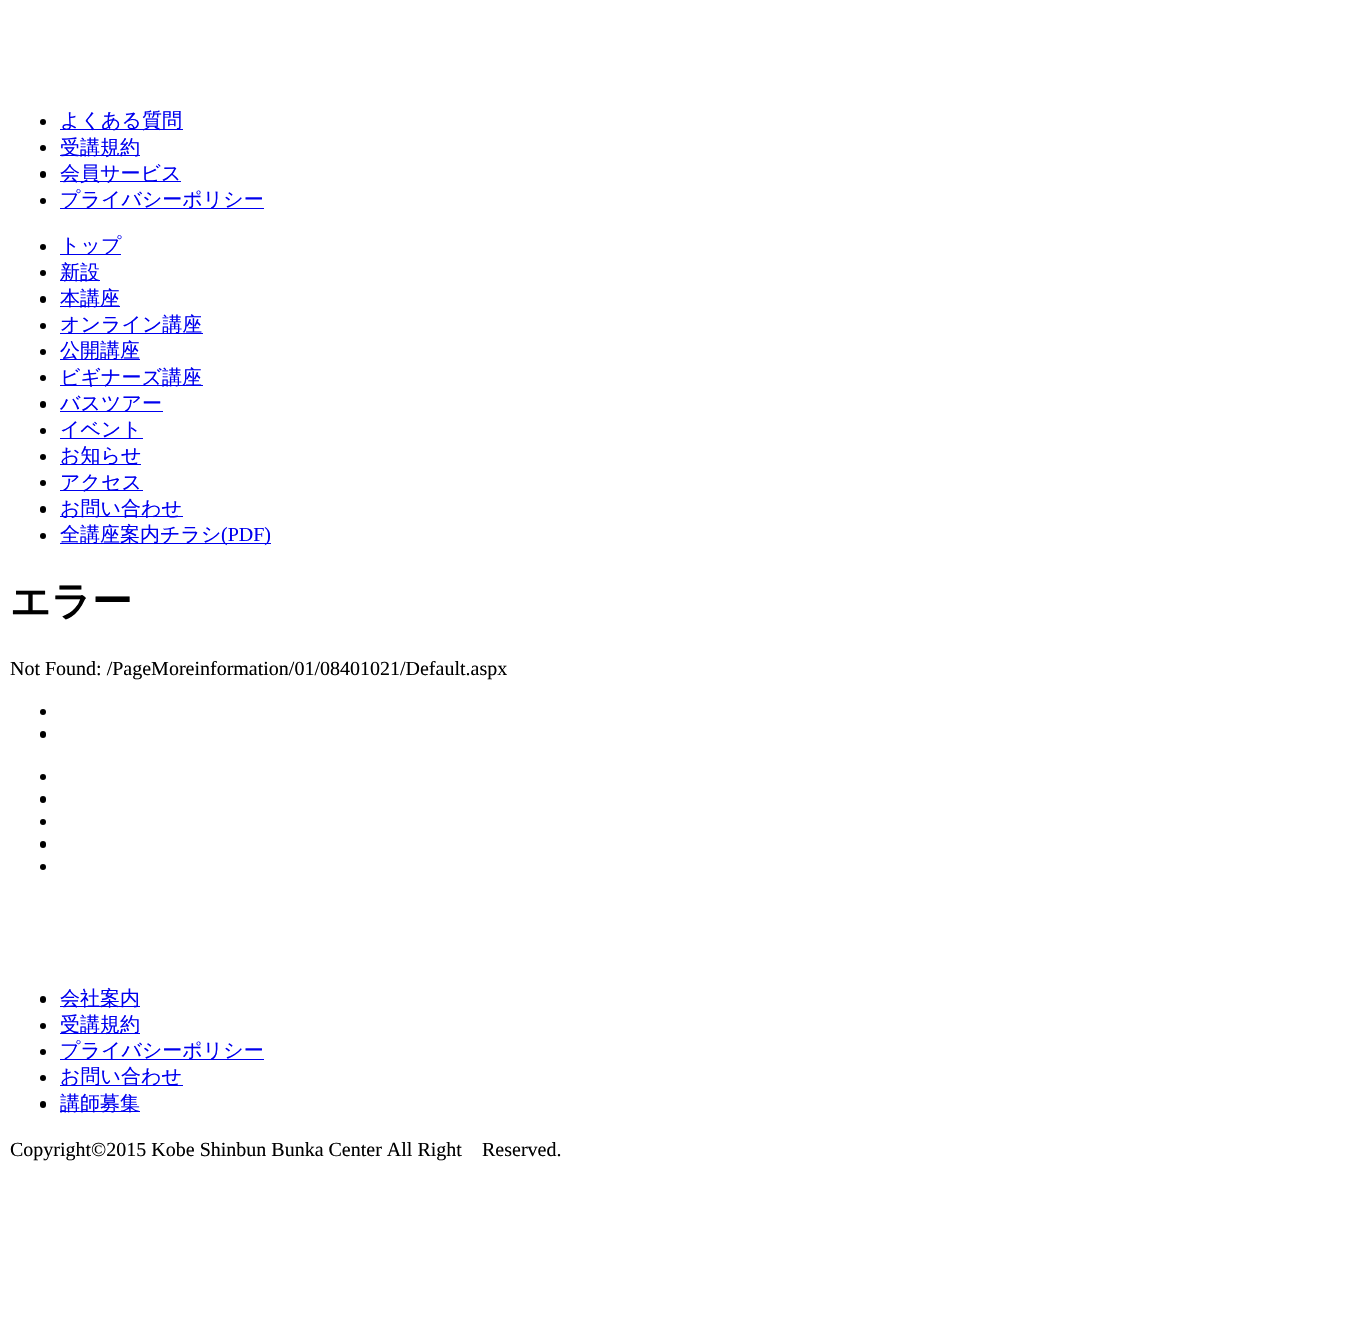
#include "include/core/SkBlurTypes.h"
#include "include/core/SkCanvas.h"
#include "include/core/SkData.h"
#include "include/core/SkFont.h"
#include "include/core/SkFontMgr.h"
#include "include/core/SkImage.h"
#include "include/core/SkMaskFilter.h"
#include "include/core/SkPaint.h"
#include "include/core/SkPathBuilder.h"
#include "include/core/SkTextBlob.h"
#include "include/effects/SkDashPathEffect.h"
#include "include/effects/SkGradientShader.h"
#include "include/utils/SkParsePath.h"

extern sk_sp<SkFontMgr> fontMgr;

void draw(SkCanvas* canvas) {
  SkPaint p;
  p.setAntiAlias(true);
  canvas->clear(SK_ColorWHITE);
  p.setColor(SK_ColorBLACK);
  canvas->drawCircle(43, 122, 3, p);
  p.setColor(SkColorSetRGB(0, 0, 238));
  canvas->drawRect(SkRect::MakeLTRB(60, 129, 183, 130), p);
  p.setColor(SK_ColorBLACK);
  canvas->drawCircle(43, 148, 3, p);
  p.setColor(SkColorSetRGB(0, 0, 238));
  canvas->drawRect(SkRect::MakeLTRB(60, 155, 140, 156), p);
  p.setColor(SK_ColorBLACK);
  canvas->drawRoundRect(SkRect::MakeLTRB(40, 171, 46, 178), 3, 3, p);
  p.setColor(SkColorSetRGB(0, 0, 238));
  canvas->drawRect(SkRect::MakeLTRB(60, 181, 181, 182), p);
  p.setColor(SK_ColorBLACK);
  canvas->drawCircle(43, 201, 3, p);
  p.setColor(SkColorSetRGB(0, 0, 238));
  canvas->drawRect(SkRect::MakeLTRB(60, 208, 264, 209), p);
  p.setColor(SK_ColorBLACK);
  canvas->drawCircle(43, 247, 3, p);
  p.setColor(SkColorSetRGB(0, 0, 238));
  canvas->drawRect(SkRect::MakeLTRB(60, 254, 121, 255), p);
  p.setColor(SK_ColorBLACK);
  canvas->drawCircle(43, 273, 3, p);
  p.setColor(SkColorSetRGB(0, 0, 238));
  canvas->drawRect(SkRect::MakeLTRB(60, 280, 100, 281), p);
  p.setColor(SK_ColorBLACK);
  canvas->drawRoundRect(SkRect::MakeLTRB(40, 296, 46, 303), 3, 3, p);
  p.setColor(SkColorSetRGB(0, 0, 238));
  canvas->drawRect(SkRect::MakeLTRB(60, 306, 120, 307), p);
  p.setColor(SK_ColorBLACK);
  canvas->drawCircle(43, 326, 3, p);
  p.setColor(SkColorSetRGB(0, 0, 238));
  canvas->drawRect(SkRect::MakeLTRB(60, 333, 203, 334), p);
  p.setColor(SK_ColorBLACK);
  canvas->drawCircle(43, 352, 3, p);
  p.setColor(SkColorSetRGB(0, 0, 238));
  canvas->drawRect(SkRect::MakeLTRB(60, 359, 140, 360), p);
  p.setColor(SK_ColorBLACK);
  canvas->drawCircle(43, 378, 3, p);
  p.setColor(SkColorSetRGB(0, 0, 238));
  canvas->drawRect(SkRect::MakeLTRB(60, 385, 203, 386), p);
  p.setColor(SK_ColorBLACK);
  canvas->drawRoundRect(SkRect::MakeLTRB(40, 401, 46, 408), 3, 3, p);
  p.setColor(SkColorSetRGB(0, 0, 238));
  canvas->drawRect(SkRect::MakeLTRB(60, 411, 163, 412), p);
  p.setColor(SK_ColorBLACK);
  canvas->drawCircle(43, 431, 3, p);
  p.setColor(SkColorSetRGB(0, 0, 238));
  canvas->drawRect(SkRect::MakeLTRB(60, 438, 143, 439), p);
  p.setColor(SK_ColorBLACK);
  canvas->drawCircle(43, 457, 3, p);
  p.setColor(SkColorSetRGB(0, 0, 238));
  canvas->drawRect(SkRect::MakeLTRB(60, 464, 141, 465), p);
  p.setColor(SK_ColorBLACK);
  canvas->drawCircle(43, 483, 3, p);
  p.setColor(SkColorSetRGB(0, 0, 238));
  canvas->drawRect(SkRect::MakeLTRB(60, 490, 143, 491), p);
  p.setColor(SK_ColorBLACK);
  canvas->drawRoundRect(SkRect::MakeLTRB(40, 506, 46, 513), 3, 3, p);
  p.setColor(SkColorSetRGB(0, 0, 238));
  canvas->drawRect(SkRect::MakeLTRB(60, 516, 183, 517), p);
  p.setColor(SK_ColorBLACK);
  canvas->drawCircle(43, 536, 3, p);
  p.setColor(SkColorSetRGB(0, 0, 238));
  canvas->drawRect(SkRect::MakeLTRB(60, 543, 271, 544), p);
  p.setColor(SK_ColorBLACK);
  canvas->drawCircle(43, 712, 3, p);
  canvas->drawRoundRect(SkRect::MakeLTRB(40, 731, 46, 738), 3, 3, p);
  canvas->drawCircle(43, 777, 3, p);
  canvas->drawRoundRect(SkRect::MakeLTRB(40, 796, 46, 803), 3, 3, p);
  canvas->drawCircle(43, 822, 3, p);
  canvas->drawRoundRect(SkRect::MakeLTRB(40, 841, 46, 848), 3, 3, p);
  canvas->drawCircle(43, 867, 3, p);
  canvas->drawRoundRect(SkRect::MakeLTRB(40, 996, 46, 1003), 3, 3, p);
  p.setColor(SkColorSetRGB(0, 0, 238));
  canvas->drawRect(SkRect::MakeLTRB(60, 1006, 140, 1007), p);
  p.setColor(SK_ColorBLACK);
  canvas->drawCircle(43, 1026, 3, p);
  p.setColor(SkColorSetRGB(0, 0, 238));
  canvas->drawRect(SkRect::MakeLTRB(60, 1033, 140, 1034), p);
  p.setColor(SK_ColorBLACK);
  canvas->drawCircle(43, 1052, 3, p);
  p.setColor(SkColorSetRGB(0, 0, 238));
  canvas->drawRect(SkRect::MakeLTRB(60, 1059, 264, 1060), p);
  p.setColor(SK_ColorBLACK);
  canvas->drawCircle(43, 1078, 3, p);
  p.setColor(SkColorSetRGB(0, 0, 238));
  canvas->drawRect(SkRect::MakeLTRB(60, 1085, 183, 1086), p);
  p.setColor(SK_ColorBLACK);
  canvas->drawRoundRect(SkRect::MakeLTRB(40, 1101, 46, 1108), 3, 3, p);
  p.setColor(SkColorSetRGB(0, 0, 238));
  canvas->drawRect(SkRect::MakeLTRB(60, 1111, 140, 1112), p);
  SkFont font1(fontMgr->matchFamilyStyle("WenQuanYi Zen Hei", SkFontStyle(500, SkFontStyle::kNormal_Width, SkFontStyle::kUpright_Slant)), 20);
  font1.setSubpixel(true);
  canvas->drawString("よくある質問", 60, 127, font1, p);
  canvas->drawString("受講規約", 60, 154, font1, p);
  canvas->drawString("会員サービス", 60, 180, font1, p);
  canvas->drawString("プライバシーポリシー", 60, 206, font1, p);
  canvas->drawString("トップ", 60, 252, font1, p);
  canvas->drawString("新設", 60, 279, font1, p);
  canvas->drawString("本講座", 60, 305, font1, p);
  canvas->drawString("オンライン講座", 60, 331, font1, p);
  canvas->drawString("公開講座", 60, 357, font1, p);
  canvas->drawString("ビギナーズ講座", 60, 384, font1, p);
  canvas->drawString("バスツアー", 60, 410, font1, p);
  canvas->drawString("イベント", 60, 436, font1, p);
  canvas->drawString("お知らせ", 60, 462, font1, p);
  canvas->drawString("アクセス", 60, 489, font1, p);
  canvas->drawString("お問い合わせ", 60, 515, font1, p);
  canvas->drawString("全講座案内チラシ", 60, 541, font1, p);
  SkFont font2(fontMgr->matchFamilyStyle("Liberation Serif", SkFontStyle::Normal()), 20);
  font2.setSubpixel(true);
  canvas->drawString("(PDF)", 221, 541, font2, p);
  SkFont font3(fontMgr->matchFamilyStyle("WenQuanYi Zen Hei", SkFontStyle::Bold()), 40);
  font3.setSubpixel(true);
  p.setColor(SK_ColorBLACK);
  canvas->drawString("エラー", 10, 615, font3, p);
  canvas->drawString("Not Found: /PageMoreinformation/01/08401021/Default.aspx", 10, 675, font2, p);
  p.setColor(SkColorSetRGB(0, 0, 238));
  canvas->drawString("会社案内", 60, 1005, font1, p);
  canvas->drawString("受講規約", 60, 1031, font1, p);
  canvas->drawString("プライバシーポリシー", 60, 1057, font1, p);
  canvas->drawString("お問い合わせ", 60, 1083, font1, p);
  canvas->drawString("講師募集", 60, 1110, font1, p);
  p.setColor(SK_ColorBLACK);
  canvas->drawString("Copyright©2015 Kobe Shinbun Bunka Center All Right", 10, 1156, font2, p);
  canvas->drawString("Reserved.", 482, 1156, font2, p);
}
